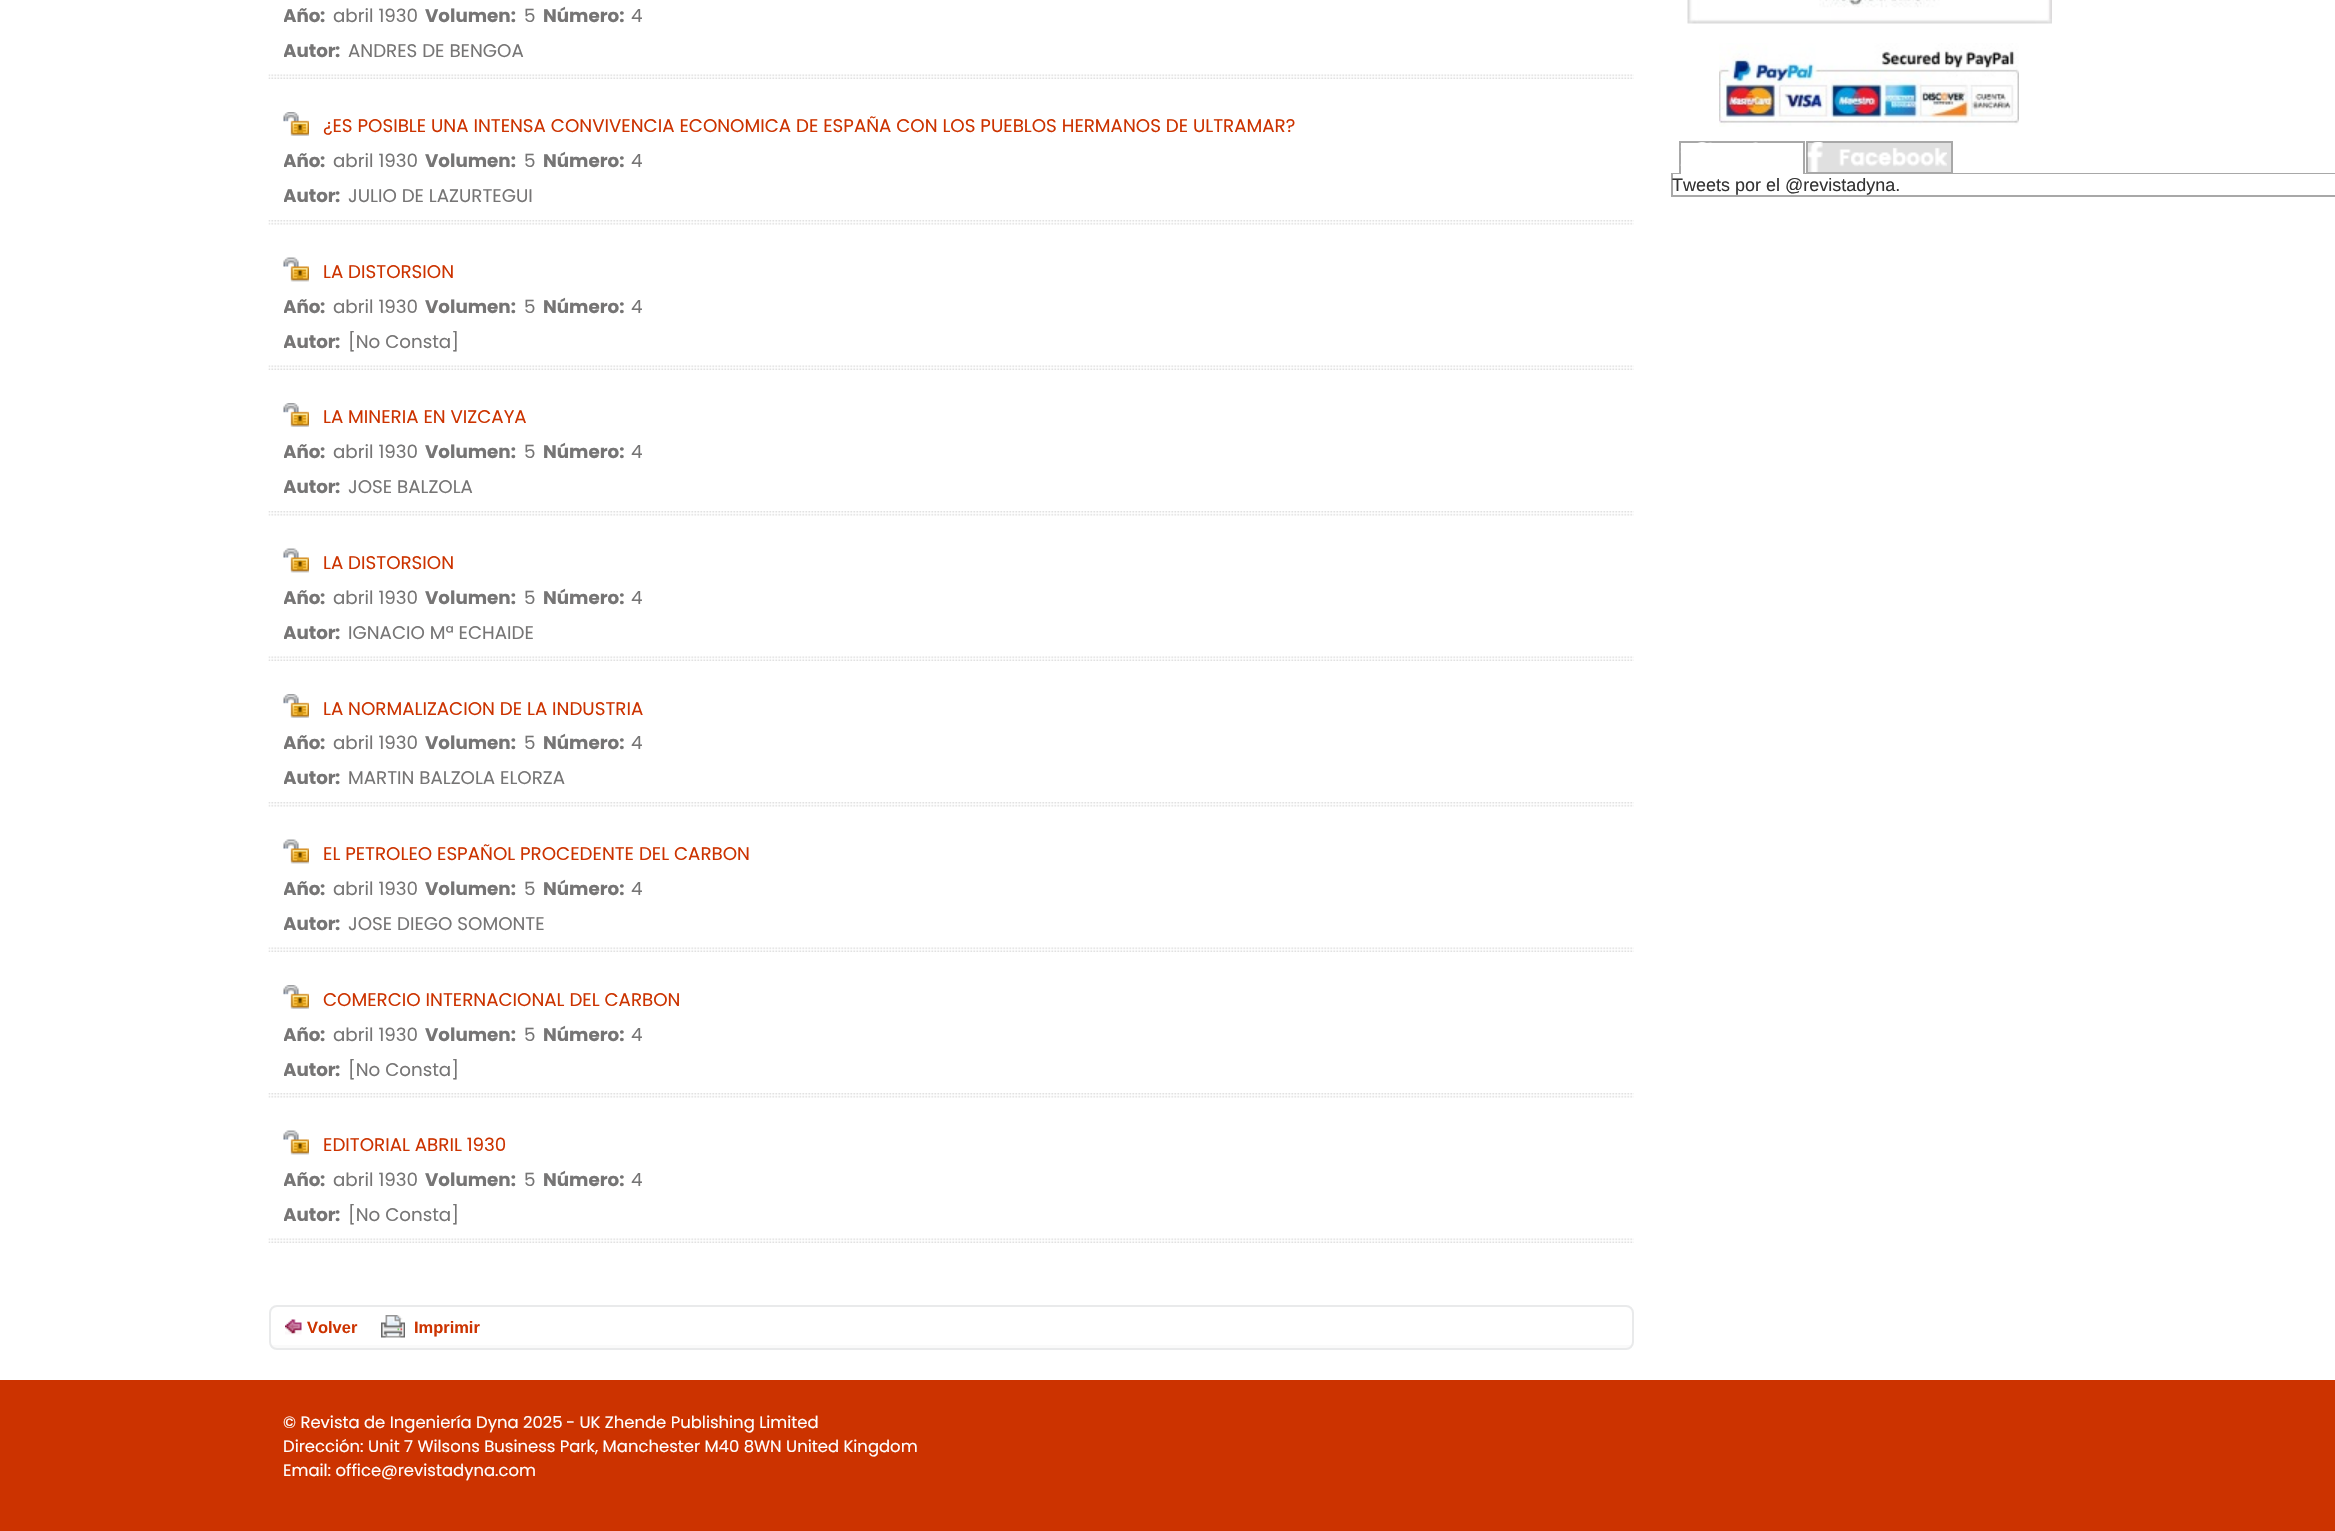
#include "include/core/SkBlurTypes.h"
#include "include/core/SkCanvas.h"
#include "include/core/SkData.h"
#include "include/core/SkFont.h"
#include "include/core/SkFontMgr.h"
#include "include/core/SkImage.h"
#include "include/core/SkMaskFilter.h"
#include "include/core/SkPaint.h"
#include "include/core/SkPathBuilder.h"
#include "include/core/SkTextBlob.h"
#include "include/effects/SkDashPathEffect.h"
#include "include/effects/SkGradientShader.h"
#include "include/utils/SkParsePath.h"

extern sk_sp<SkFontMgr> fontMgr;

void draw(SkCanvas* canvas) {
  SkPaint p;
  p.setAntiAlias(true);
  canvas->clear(SK_ColorWHITE);
  canvas->drawImageRect(SkImages::DeferredFromEncodedData(SkData::MakeFromFileName("images/1.png")), SkRect::MakeLTRB(268, 74, 1634, 79), SkSamplingOptions());
  canvas->drawImageRect(SkImages::DeferredFromEncodedData(SkData::MakeFromFileName("images/2.png")), SkRect::MakeLTRB(268, 220, 1634, 225), SkSamplingOptions());
  canvas->drawImageRect(SkImages::DeferredFromEncodedData(SkData::MakeFromFileName("images/3.png")), SkRect::MakeLTRB(283, 112, 309, 136), SkSamplingOptions());
  canvas->drawImageRect(SkImages::DeferredFromEncodedData(SkData::MakeFromFileName("images/1.png")), SkRect::MakeLTRB(268, 365, 1634, 370), SkSamplingOptions());
  canvas->drawImageRect(SkImages::DeferredFromEncodedData(SkData::MakeFromFileName("images/4.png")), SkRect::MakeLTRB(283, 257, 309, 282), SkSamplingOptions());
  canvas->drawImageRect(SkImages::DeferredFromEncodedData(SkData::MakeFromFileName("images/2.png")), SkRect::MakeLTRB(268, 511, 1634, 516), SkSamplingOptions());
  canvas->drawImageRect(SkImages::DeferredFromEncodedData(SkData::MakeFromFileName("images/3.png")), SkRect::MakeLTRB(283, 403, 309, 427), SkSamplingOptions());
  canvas->drawImageRect(SkImages::DeferredFromEncodedData(SkData::MakeFromFileName("images/1.png")), SkRect::MakeLTRB(268, 656, 1634, 661), SkSamplingOptions());
  canvas->drawImageRect(SkImages::DeferredFromEncodedData(SkData::MakeFromFileName("images/4.png")), SkRect::MakeLTRB(283, 548, 309, 573), SkSamplingOptions());
  canvas->drawImageRect(SkImages::DeferredFromEncodedData(SkData::MakeFromFileName("images/2.png")), SkRect::MakeLTRB(268, 802, 1634, 807), SkSamplingOptions());
  canvas->drawImageRect(SkImages::DeferredFromEncodedData(SkData::MakeFromFileName("images/3.png")), SkRect::MakeLTRB(283, 694, 309, 718), SkSamplingOptions());
  canvas->drawImageRect(SkImages::DeferredFromEncodedData(SkData::MakeFromFileName("images/1.png")), SkRect::MakeLTRB(268, 947, 1634, 952), SkSamplingOptions());
  canvas->drawImageRect(SkImages::DeferredFromEncodedData(SkData::MakeFromFileName("images/4.png")), SkRect::MakeLTRB(283, 839, 309, 864), SkSamplingOptions());
  canvas->drawImageRect(SkImages::DeferredFromEncodedData(SkData::MakeFromFileName("images/2.png")), SkRect::MakeLTRB(268, 1093, 1634, 1098), SkSamplingOptions());
  canvas->drawImageRect(SkImages::DeferredFromEncodedData(SkData::MakeFromFileName("images/3.png")), SkRect::MakeLTRB(283, 985, 309, 1009), SkSamplingOptions());
  canvas->drawImageRect(SkImages::DeferredFromEncodedData(SkData::MakeFromFileName("images/1.png")), SkRect::MakeLTRB(268, 1238, 1634, 1243), SkSamplingOptions());
  canvas->drawImageRect(SkImages::DeferredFromEncodedData(SkData::MakeFromFileName("images/4.png")), SkRect::MakeLTRB(283, 1130, 309, 1155), SkSamplingOptions());
  canvas->drawImageRect(SkImages::DeferredFromEncodedData(SkData::MakeFromFileName("images/5.png")), SkRect::MakeLTRB(270, 1345, 1632, 1349), SkSamplingOptions());
  p.setStyle(SkPaint::kStroke_Style);
  p.setStrokeWidth(2);
  p.setColor(SkColorSetRGB(233, 234, 235));
  canvas->drawRoundRect(SkRect::MakeLTRB(270, 1306, 1633, 1349), 7, 7, p);
  canvas->drawImageRect(SkImages::DeferredFromEncodedData(SkData::MakeFromFileName("images/6.png")), SkRect::MakeLTRB(285, 1319, 302, 1335), SkSamplingOptions());
  canvas->drawImageRect(SkImages::DeferredFromEncodedData(SkData::MakeFromFileName("images/7.png")), SkRect::MakeLTRB(381, 1315, 405, 1338), SkSamplingOptions());
  canvas->drawImageRect(SkImages::DeferredFromEncodedData(SkData::MakeFromFileName("images/8.png")), SkRect::MakeLTRB(1687, 0, 2052, 24), SkSamplingOptions());
  canvas->drawImageRect(SkImages::DeferredFromEncodedData(SkData::MakeFromFileName("images/9.png")), SkRect::MakeLTRB(1719, 43, 2019, 127), SkSamplingOptions());
  p.setStyle(SkPaint::kFill_Style);
  p.setColor(SkColorSetRGB(168, 168, 168));
  canvas->drawRect(SkRect::MakeLTRB(1671, 173, 1679, 174), p);
  canvas->drawRect(SkRect::MakeLTRB(1679, 141, 1805, 143), p);
  canvas->drawRect(SkRect::MakeLTRB(1803, 141, 1805, 174), p);
  canvas->drawRect(SkRect::MakeLTRB(1679, 141, 1681, 174), p);
  canvas->drawImageRect(SkImages::DeferredFromEncodedData(SkData::MakeFromFileName("images/10.png")), SkRect::MakeLTRB(1680, 142, 1758, 166), SkSamplingOptions());
  canvas->drawRect(SkRect::MakeLTRB(1805, 173, 1807, 174), p);
  p.setColor(SkColorSetRGB(224, 224, 224));
  canvas->drawRect(SkRect::MakeLTRB(1807, 142, 1952, 173), p);
  p.setStyle(SkPaint::kStroke_Style);
  p.setColor(SkColorSetRGB(168, 168, 168));
  canvas->drawRect(SkRect::MakeLTRB(1807, 142, 1952, 173), p);
  canvas->drawImageRect(SkImages::DeferredFromEncodedData(SkData::MakeFromFileName("images/11.png")), SkRect::MakeLTRB(1807, 142, 1947, 172), SkSamplingOptions());
  p.setStyle(SkPaint::kFill_Style);
  canvas->drawRect(SkRect::MakeLTRB(1953, 173, 2335, 174), p);
  canvas->drawRect(SkRect::MakeLTRB(1671, 195, 2335, 197), p);
  canvas->drawRect(SkRect::MakeLTRB(1671, 174, 1673, 197), p);
  p.setColor(SkColorSetRGB(204, 51, 0));
  canvas->drawRect(SkRect::MakeLTRB(0, 1380, 2335, 1531), p);
  canvas->save();
  canvas->clipRect(SkRect::MakeLTRB(284, 0, 1619, 30));
  SkFont font1(fontMgr->matchFamilyStyle("Poppins", SkFontStyle::Bold()), 18.28f);
  font1.setSubpixel(true);
  p.setColor(SkColorSetRGB(118, 117, 117));
  canvas->drawString("Año", 283, 22, font1, p);
  canvas->restore();
  canvas->drawString(":", 320, 22, font1, p);
  SkFont font2(fontMgr->matchFamilyStyle("Poppins", SkFontStyle::Normal()), 18.28f);
  font2.setSubpixel(true);
  canvas->drawString("abril 1930", 333, 22, font2, p);
  canvas->drawString("Volumen:", 425, 22, font1, p);
  canvas->drawString("5", 524, 22, font2, p);
  canvas->drawString("Número:", 543, 22, font1, p);
  canvas->drawString("4", 631, 22, font2, p);
  canvas->save();
  canvas->clipRect(SkRect::MakeLTRB(284, 30, 1619, 65));
  canvas->drawString("Autor", 283, 57, font1, p);
  canvas->restore();
  canvas->drawString(":", 335, 57, font1, p);
  canvas->drawString("ANDRES DE BENGOA", 348, 57, font2, p);
  p.setColor(SkColorSetRGB(204, 51, 0));
  canvas->drawString("¿ES POSIBLE UNA INTENSA CONVIVENCIA ECONOMICA DE ESPAÑA CON LOS PUEBLOS HERMANOS DE ULTRAMAR?", 323, 132, font2, p);
  canvas->save();
  canvas->clipRect(SkRect::MakeLTRB(284, 141, 1619, 176));
  p.setColor(SkColorSetRGB(118, 117, 117));
  canvas->drawString("Año", 283, 167, font1, p);
  canvas->restore();
  canvas->drawString(":", 320, 167, font1, p);
  canvas->drawString("abril 1930", 333, 167, font2, p);
  canvas->drawString("Volumen:", 425, 167, font1, p);
  canvas->drawString("5", 524, 167, font2, p);
  canvas->drawString("Número:", 543, 167, font1, p);
  canvas->drawString("4", 631, 167, font2, p);
  canvas->save();
  canvas->clipRect(SkRect::MakeLTRB(284, 176, 1619, 210));
  canvas->drawString("Autor", 283, 202, font1, p);
  canvas->restore();
  canvas->drawString(":", 335, 202, font1, p);
  canvas->drawString("JULIO DE LAZURTEGUI", 348, 202, font2, p);
  p.setColor(SkColorSetRGB(204, 51, 0));
  canvas->drawString("LA DISTORSION", 323, 278, font2, p);
  canvas->save();
  canvas->clipRect(SkRect::MakeLTRB(284, 287, 1619, 321));
  p.setColor(SkColorSetRGB(118, 117, 117));
  canvas->drawString("Año", 283, 313, font1, p);
  canvas->restore();
  canvas->drawString(":", 320, 313, font1, p);
  canvas->drawString("abril 1930", 333, 313, font2, p);
  canvas->drawString("Volumen:", 425, 313, font1, p);
  canvas->drawString("5", 524, 313, font2, p);
  canvas->drawString("Número:", 543, 313, font1, p);
  canvas->drawString("4", 631, 313, font2, p);
  canvas->save();
  canvas->clipRect(SkRect::MakeLTRB(284, 321, 1619, 356));
  canvas->drawString("Autor", 283, 348, font1, p);
  canvas->restore();
  canvas->drawString(":", 335, 348, font1, p);
  canvas->drawString("[No Consta]", 348, 348, font2, p);
  p.setColor(SkColorSetRGB(204, 51, 0));
  canvas->drawString("LA MINERIA EN VIZCAYA", 323, 423, font2, p);
  canvas->save();
  canvas->clipRect(SkRect::MakeLTRB(284, 432, 1619, 467));
  p.setColor(SkColorSetRGB(118, 117, 117));
  canvas->drawString("Año", 283, 458, font1, p);
  canvas->restore();
  canvas->drawString(":", 320, 458, font1, p);
  canvas->drawString("abril 1930", 333, 458, font2, p);
  canvas->drawString("Volumen:", 425, 458, font1, p);
  canvas->drawString("5", 524, 458, font2, p);
  canvas->drawString("Número:", 543, 458, font1, p);
  canvas->drawString("4", 631, 458, font2, p);
  canvas->save();
  canvas->clipRect(SkRect::MakeLTRB(284, 467, 1619, 501));
  canvas->drawString("Autor", 283, 493, font1, p);
  canvas->restore();
  canvas->drawString(":", 335, 493, font1, p);
  canvas->drawString("JOSE BALZOLA", 348, 493, font2, p);
  p.setColor(SkColorSetRGB(204, 51, 0));
  canvas->drawString("LA DISTORSION", 323, 569, font2, p);
  canvas->save();
  canvas->clipRect(SkRect::MakeLTRB(284, 578, 1619, 612));
  p.setColor(SkColorSetRGB(118, 117, 117));
  canvas->drawString("Año", 283, 604, font1, p);
  canvas->restore();
  canvas->drawString(":", 320, 604, font1, p);
  canvas->drawString("abril 1930", 333, 604, font2, p);
  canvas->drawString("Volumen:", 425, 604, font1, p);
  canvas->drawString("5", 524, 604, font2, p);
  canvas->drawString("Número:", 543, 604, font1, p);
  canvas->drawString("4", 631, 604, font2, p);
  canvas->save();
  canvas->clipRect(SkRect::MakeLTRB(284, 612, 1619, 647));
  canvas->drawString("Autor", 283, 639, font1, p);
  canvas->restore();
  canvas->drawString(":", 335, 639, font1, p);
  canvas->drawString("IGNACIO Mª ECHAIDE", 348, 639, font2, p);
  p.setColor(SkColorSetRGB(204, 51, 0));
  canvas->drawString("LA NORMALIZACION DE LA INDUSTRIA", 323, 715, font2, p);
  canvas->save();
  canvas->clipRect(SkRect::MakeLTRB(284, 723, 1619, 758));
  p.setColor(SkColorSetRGB(118, 117, 117));
  canvas->drawString("Año", 283, 749, font1, p);
  canvas->restore();
  canvas->drawString(":", 320, 749, font1, p);
  canvas->drawString("abril 1930", 333, 749, font2, p);
  canvas->drawString("Volumen:", 425, 749, font1, p);
  canvas->drawString("5", 524, 749, font2, p);
  canvas->drawString("Número:", 543, 749, font1, p);
  canvas->drawString("4", 631, 749, font2, p);
  canvas->save();
  canvas->clipRect(SkRect::MakeLTRB(284, 758, 1619, 792));
  canvas->drawString("Autor", 283, 784, font1, p);
  canvas->restore();
  canvas->drawString(":", 335, 784, font1, p);
  canvas->drawString("MARTIN BALZOLA ELORZA", 348, 784, font2, p);
  p.setColor(SkColorSetRGB(204, 51, 0));
  canvas->drawString("EL PETROLEO ESPAÑOL PROCEDENTE DEL CARBON", 323, 860, font2, p);
  canvas->save();
  canvas->clipRect(SkRect::MakeLTRB(284, 869, 1619, 903));
  p.setColor(SkColorSetRGB(118, 117, 117));
  canvas->drawString("Año", 283, 895, font1, p);
  canvas->restore();
  canvas->drawString(":", 320, 895, font1, p);
  canvas->drawString("abril 1930", 333, 895, font2, p);
  canvas->drawString("Volumen:", 425, 895, font1, p);
  canvas->drawString("5", 524, 895, font2, p);
  canvas->drawString("Número:", 543, 895, font1, p);
  canvas->drawString("4", 631, 895, font2, p);
  canvas->save();
  canvas->clipRect(SkRect::MakeLTRB(284, 903, 1619, 938));
  canvas->drawString("Autor", 283, 930, font1, p);
  canvas->restore();
  canvas->drawString(":", 335, 930, font1, p);
  canvas->drawString("JOSE DIEGO SOMONTE", 348, 930, font2, p);
  p.setColor(SkColorSetRGB(204, 51, 0));
  canvas->drawString("COMERCIO INTERNACIONAL DEL CARBON", 323, 1006, font2, p);
  canvas->save();
  canvas->clipRect(SkRect::MakeLTRB(284, 1014, 1619, 1049));
  p.setColor(SkColorSetRGB(118, 117, 117));
  canvas->drawString("Año", 283, 1041, font1, p);
  canvas->restore();
  canvas->drawString(":", 320, 1041, font1, p);
  canvas->drawString("abril 1930", 333, 1041, font2, p);
  canvas->drawString("Volumen:", 425, 1041, font1, p);
  canvas->drawString("5", 524, 1041, font2, p);
  canvas->drawString("Número:", 543, 1041, font1, p);
  canvas->drawString("4", 631, 1041, font2, p);
  canvas->save();
  canvas->clipRect(SkRect::MakeLTRB(284, 1049, 1619, 1083));
  canvas->drawString("Autor", 283, 1076, font1, p);
  canvas->restore();
  canvas->drawString(":", 335, 1076, font1, p);
  canvas->drawString("[No Consta]", 348, 1076, font2, p);
  p.setColor(SkColorSetRGB(204, 51, 0));
  canvas->drawString("EDITORIAL ABRIL 1930", 323, 1151, font2, p);
  canvas->save();
  canvas->clipRect(SkRect::MakeLTRB(284, 1160, 1619, 1194));
  p.setColor(SkColorSetRGB(118, 117, 117));
  canvas->drawString("Año", 283, 1186, font1, p);
  canvas->restore();
  canvas->drawString(":", 320, 1186, font1, p);
  canvas->drawString("abril 1930", 333, 1186, font2, p);
  canvas->drawString("Volumen:", 425, 1186, font1, p);
  canvas->drawString("5", 524, 1186, font2, p);
  canvas->drawString("Número:", 543, 1186, font1, p);
  canvas->drawString("4", 631, 1186, font2, p);
  canvas->save();
  canvas->clipRect(SkRect::MakeLTRB(284, 1194, 1619, 1229));
  canvas->drawString("Autor", 283, 1221, font1, p);
  canvas->restore();
  canvas->drawString(":", 335, 1221, font1, p);
  canvas->drawString("[No Consta]", 348, 1221, font2, p);
  SkFont font3(fontMgr->matchFamilyStyle("Liberation Sans", SkFontStyle::Bold()), 16.45f);
  font3.setSubpixel(true);
  p.setColor(SkColorSetRGB(204, 51, 0));
  canvas->drawString("Volver", 307, 1333, font3, p);
  canvas->drawString("Imprimir", 414, 1333, font3, p);
  SkFont font4(fontMgr->matchFamilyStyle("Liberation Sans", SkFontStyle::Normal()), 18);
  font4.setSubpixel(true);
  p.setColor(SkColorSetRGB(51, 51, 51));
  canvas->drawString("Tweets por el @revistadyna.", 1672, 191, font4, p);
  SkFont font5(fontMgr->matchFamilyStyle("Poppins", SkFontStyle::Normal()), 16.45f);
  font5.setSubpixel(true);
  p.setColor(SK_ColorWHITE);
  canvas->drawString("© Revista de Ingeniería Dyna 2025", 283, 1428, font5, p);
  canvas->drawString("- UK Zhende Publishing Limited", 566, 1428, font5, p);
  canvas->drawString("Dirección: Unit 7 Wilsons Business Park, Manchester M40 8WN United Kingdom", 283, 1452, font5, p);
  canvas->drawString("Email: office@revistadyna.com", 283, 1476, font5, p);
}
